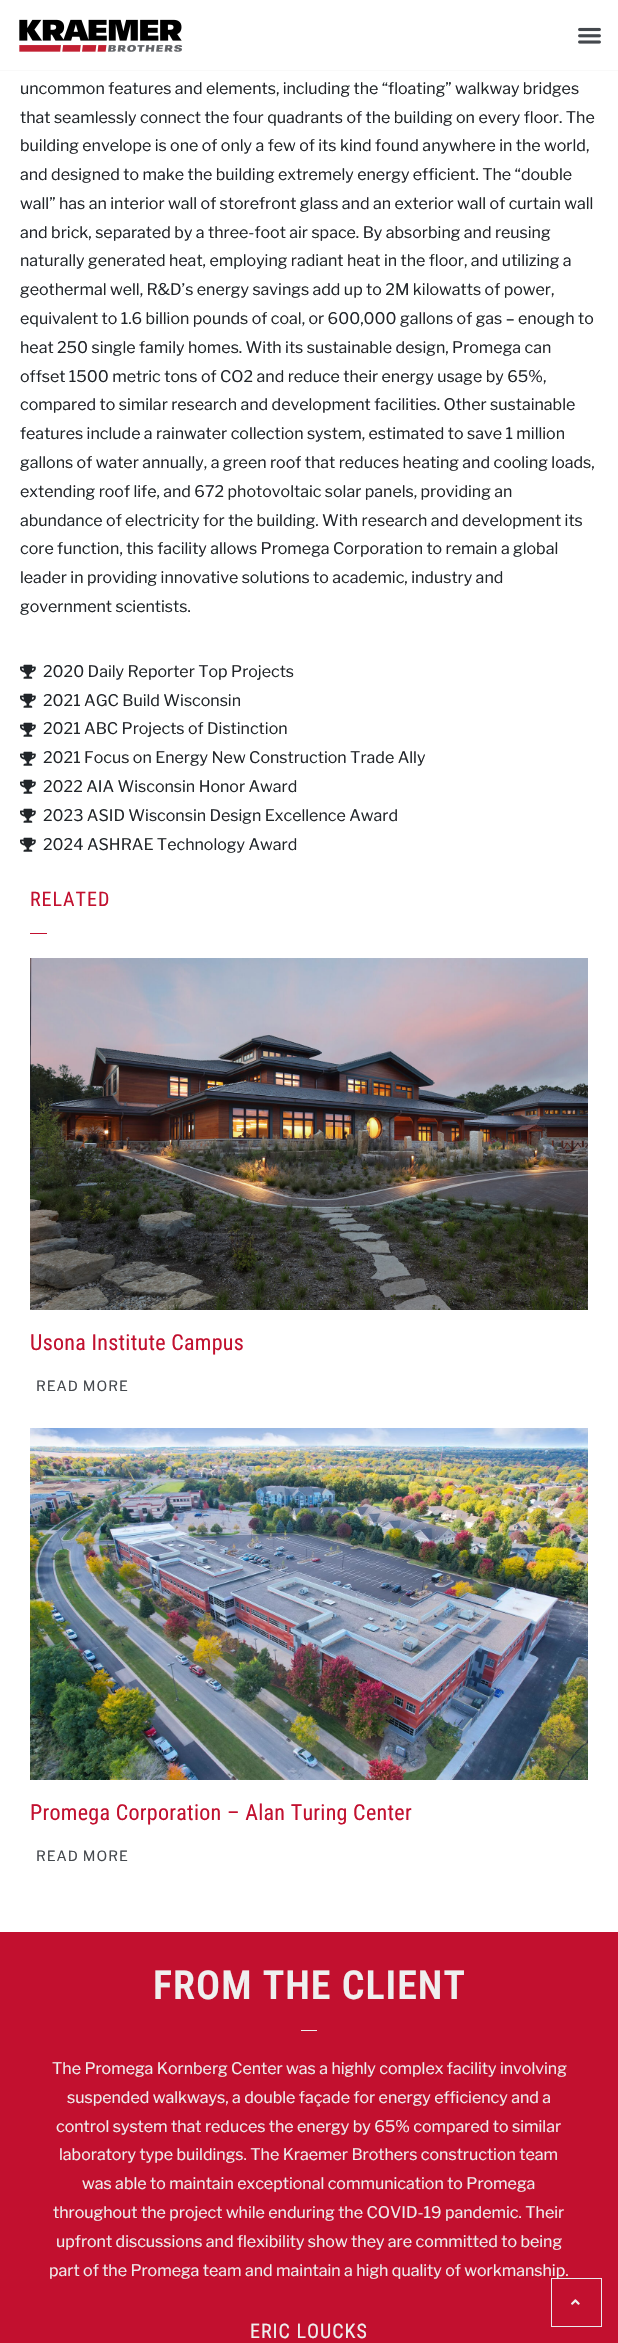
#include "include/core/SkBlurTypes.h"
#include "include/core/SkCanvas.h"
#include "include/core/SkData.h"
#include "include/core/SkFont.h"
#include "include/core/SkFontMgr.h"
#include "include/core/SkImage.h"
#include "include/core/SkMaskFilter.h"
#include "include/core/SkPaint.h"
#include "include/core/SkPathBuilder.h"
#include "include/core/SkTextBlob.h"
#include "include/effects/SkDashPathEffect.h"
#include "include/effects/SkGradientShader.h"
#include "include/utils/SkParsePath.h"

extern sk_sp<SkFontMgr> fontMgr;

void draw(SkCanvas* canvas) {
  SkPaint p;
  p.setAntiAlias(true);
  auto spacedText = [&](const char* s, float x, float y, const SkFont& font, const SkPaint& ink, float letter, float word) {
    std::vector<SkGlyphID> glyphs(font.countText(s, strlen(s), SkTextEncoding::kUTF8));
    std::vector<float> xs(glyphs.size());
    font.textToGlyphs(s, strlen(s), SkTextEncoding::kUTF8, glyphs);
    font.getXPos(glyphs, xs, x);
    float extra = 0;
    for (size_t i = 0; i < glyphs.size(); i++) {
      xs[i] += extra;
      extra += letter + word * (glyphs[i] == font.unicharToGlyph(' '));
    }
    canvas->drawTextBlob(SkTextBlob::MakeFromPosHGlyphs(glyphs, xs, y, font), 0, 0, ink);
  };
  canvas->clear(SK_ColorWHITE);
  p.setColor(SkColorSetRGB(249, 249, 249));
  canvas->drawRect(SkRect::MakeLTRB(0, 70, 618, 71), p);
  canvas->drawImageRect(SkImages::DeferredFromEncodedData(SkData::MakeFromFileName("images/1.png")), SkRect::MakeLTRB(19, 19, 183, 52), SkSamplingOptions());
  canvas->drawImageRect(SkImages::DeferredFromEncodedData(SkData::MakeFromFileName("images/2.png")), SkRect::MakeLTRB(578, 27, 601, 44), SkSamplingOptions());
  canvas->drawImageRect(SkImages::DeferredFromEncodedData(SkData::MakeFromFileName("images/3.png")), SkRect::MakeLTRB(20, 664, 36, 679), SkSamplingOptions());
  canvas->drawImageRect(SkImages::DeferredFromEncodedData(SkData::MakeFromFileName("images/3.png")), SkRect::MakeLTRB(20, 693, 36, 708), SkSamplingOptions());
  canvas->drawImageRect(SkImages::DeferredFromEncodedData(SkData::MakeFromFileName("images/3.png")), SkRect::MakeLTRB(20, 722, 36, 737), SkSamplingOptions());
  canvas->drawImageRect(SkImages::DeferredFromEncodedData(SkData::MakeFromFileName("images/3.png")), SkRect::MakeLTRB(20, 751, 36, 766), SkSamplingOptions());
  canvas->drawImageRect(SkImages::DeferredFromEncodedData(SkData::MakeFromFileName("images/3.png")), SkRect::MakeLTRB(20, 779, 36, 794), SkSamplingOptions());
  canvas->drawImageRect(SkImages::DeferredFromEncodedData(SkData::MakeFromFileName("images/3.png")), SkRect::MakeLTRB(20, 808, 36, 823), SkSamplingOptions());
  canvas->drawImageRect(SkImages::DeferredFromEncodedData(SkData::MakeFromFileName("images/3.png")), SkRect::MakeLTRB(20, 837, 36, 852), SkSamplingOptions());
  p.setColor(SkColorSetRGB(194, 16, 47));
  canvas->drawRect(SkRect::MakeLTRB(30, 933, 47, 934), p);
  canvas->drawImageRect(SkImages::DeferredFromEncodedData(SkData::MakeFromFileName("images/4.png")), SkRect::MakeLTRB(30, 958, 588, 1310), SkSamplingOptions());
  canvas->drawImageRect(SkImages::DeferredFromEncodedData(SkData::MakeFromFileName("images/5.png")), SkRect::MakeLTRB(30, 1428, 588, 1780), SkSamplingOptions());
  canvas->drawRect(SkRect::MakeLTRB(0, 1932, 618, 2343), p);
  p.setColor(SkColorSetRGB(239, 239, 239));
  canvas->drawRect(SkRect::MakeLTRB(301, 2030, 317, 2031), p);
  SkFont font1(fontMgr->matchFamilyStyle("Libre Franklin", SkFontStyle::Normal()), 16);
  font1.setSubpixel(true);
  p.setColor(SkColorSetRGB(33, 37, 41));
  canvas->drawString("uncommon features and elements, including the “floating” walkway bridges", 20, 94, font1, p);
  canvas->drawString("that seamlessly connect the four quadrants of the building on every floor. The", 20, 123, font1, p);
  canvas->drawString("building envelope is one of only a few of its kind found anywhere in the world,", 20, 151, font1, p);
  canvas->drawString("and designed to make the building extremely energy efficient. The “double", 20, 180, font1, p);
  canvas->drawString("wall” has an interior wall of storefront glass and an exterior wall of curtain wall", 20, 209, font1, p);
  canvas->drawString("and brick, separated by a three-foot air space. By absorbing and reusing", 20, 238, font1, p);
  canvas->drawString("naturally generated heat, employing radiant heat in the floor, and utilizing a", 20, 266, font1, p);
  canvas->drawString("geothermal well, R&D’s energy savings add up to 2M kilowatts of power,", 20, 295, font1, p);
  canvas->drawString("equivalent to 1.6 billion pounds of coal, or 600,000 gallons of gas – enough to", 20, 324, font1, p);
  canvas->drawString("heat 250 single family homes. With its sustainable design, Promega can", 20, 353, font1, p);
  canvas->drawString("offset 1500 metric tons of CO2 and reduce their energy usage by 65%,", 20, 382, font1, p);
  canvas->drawString("compared to similar research and development facilities. Other sustainable", 20, 410, font1, p);
  canvas->drawString("features include a rainwater collection system, estimated to save 1 million", 20, 439, font1, p);
  canvas->drawString("gallons of water annually, a green roof that reduces heating and cooling loads,", 20, 468, font1, p);
  canvas->drawString("extending roof life, and 672 photovoltaic solar panels, providing an", 20, 497, font1, p);
  canvas->drawString("abundance of electricity for the building. With research and development its", 20, 526, font1, p);
  canvas->drawString("core function, this facility allows Promega Corporation to remain a global", 20, 554, font1, p);
  canvas->drawString("leader in providing innovative solutions to academic, industry and", 20, 583, font1, p);
  canvas->drawString("government scientists.", 20, 612, font1, p);
  canvas->drawString("2020 Daily Reporter Top Projects", 43, 677, font1, p);
  canvas->drawString("2021 AGC Build Wisconsin", 43, 706, font1, p);
  canvas->drawString("2021 ABC Projects of Distinction", 43, 734, font1, p);
  canvas->drawString("2021 Focus on Energy New Construction Trade Ally", 43, 763, font1, p);
  canvas->drawString("2022 AIA Wisconsin Honor Award", 43, 792, font1, p);
  canvas->drawString("2023 ASID Wisconsin Design Excellence Award", 43, 821, font1, p);
  canvas->drawString("2024 ASHRAE Technology Award", 43, 850, font1, p);
  SkFont font2(fontMgr->matchFamilyStyle("Roboto Condensed", SkFontStyle::Normal()), 20);
  font2.setSubpixel(true);
  p.setColor(SkColorSetRGB(194, 16, 47));
  spacedText("RELATED", 30, 906, font2, p, 1, 0);
  SkFont font3(fontMgr->matchFamilyStyle("Roboto Condensed", SkFontStyle::Normal()), 22);
  font3.setSubpixel(true);
  spacedText("Usona Institute Campus", 30, 1350, font3, p, 0.3f, 0);
  SkFont font4(fontMgr->matchFamilyStyle("Libre Franklin", SkFontStyle::Normal()), 14);
  font4.setSubpixel(true);
  p.setColor(SkColorSetRGB(68, 72, 77));
  spacedText("READ MORE", 36, 1391, font4, p, 1, 0);
  p.setColor(SkColorSetRGB(194, 16, 47));
  spacedText("Promega Corporation – Alan Turing Center", 30, 1820, font3, p, 0.3f, 0);
  p.setColor(SkColorSetRGB(68, 72, 77));
  spacedText("READ MORE", 36, 1861, font4, p, 1, 0);
  SkFont font5(fontMgr->matchFamilyStyle("Roboto Condensed", SkFontStyle(600, SkFontStyle::kNormal_Width, SkFontStyle::kUpright_Slant)), 40);
  font5.setSubpixel(true);
  p.setColor(SkColorSetRGB(239, 239, 239));
  spacedText("FROM THE CLIENT", 153, 1999, font5, p, 1, 0);
  canvas->drawString("The Promega Kornberg Center was a highly complex facility involving", 52, 2074, font1, p);
  canvas->drawString("suspended walkways, a double façade for energy efficiency and a", 67, 2103, font1, p);
  canvas->drawString("control system that reduces the energy by 65% compared to similar", 56, 2132, font1, p);
  canvas->drawString("laboratory type buildings. The Kraemer Brothers construction team", 59, 2160, font1, p);
  canvas->drawString("was able to maintain exceptional communication to Promega", 82, 2189, font1, p);
  canvas->drawString("throughout the project while enduring the COVID-19 pandemic. Their", 53, 2218, font1, p);
  canvas->drawString("upfront discussions and flexibility show they are committed to being", 56, 2247, font1, p);
  canvas->drawString("part of the Promega team and maintain a high quality of workmanship.", 49, 2276, font1, p);
  spacedText("ERIC LOUCKS", 250, 2338, font2, p, 1, 0);
  p.setStyle(SkPaint::kStroke_Style);
  p.setStrokeWidth(1);
  p.setColor(SkColorSetRGB(233, 236, 239));
  canvas->drawRect(SkRect::MakeLTRB(551.5f, 2278.5f, 601.5f, 2326.5f), p);
  canvas->drawImageRect(SkImages::DeferredFromEncodedData(SkData::MakeFromFileName("images/6.png")), SkRect::MakeLTRB(571, 2299, 580, 2305), SkSamplingOptions());
}
